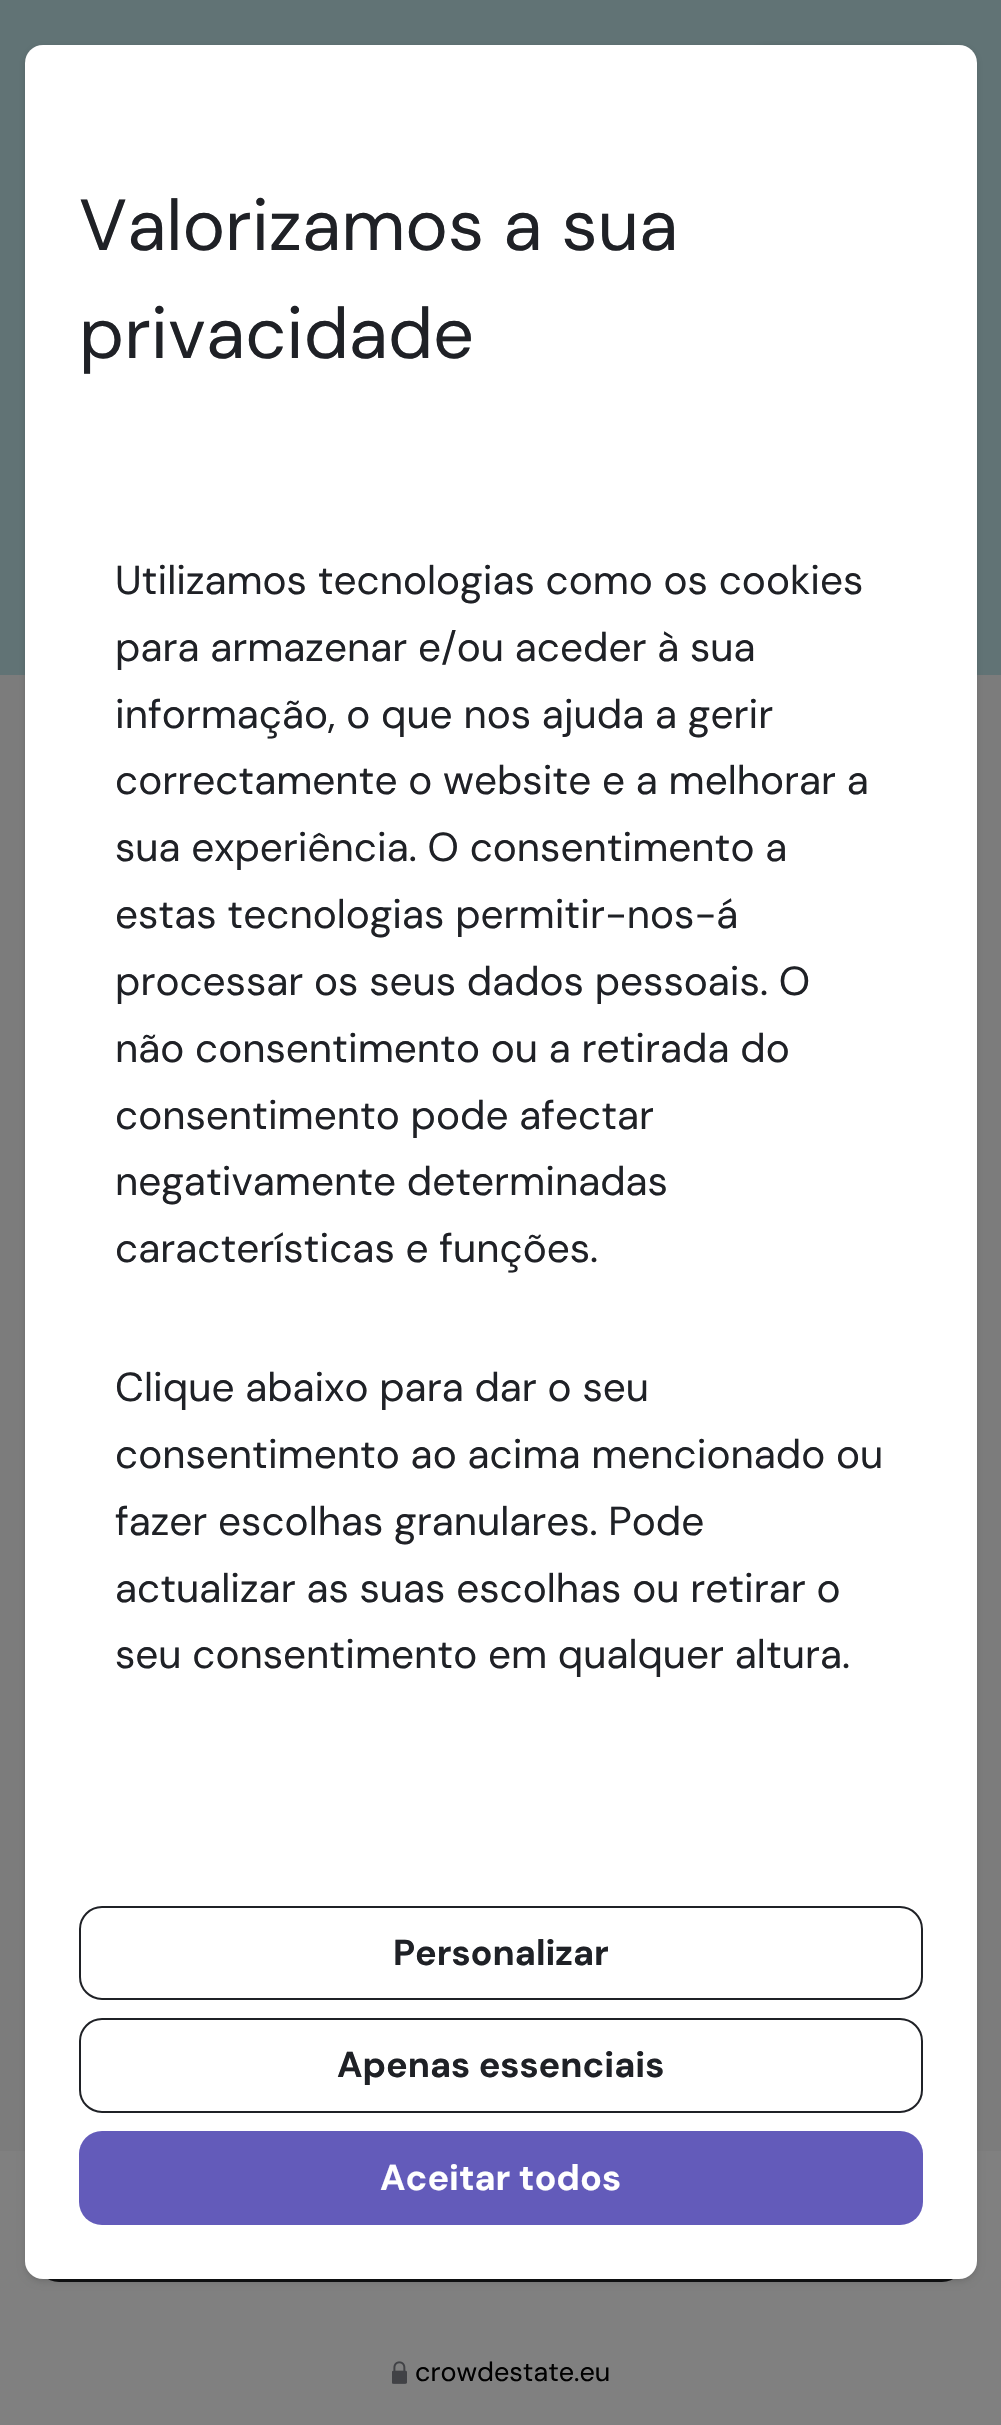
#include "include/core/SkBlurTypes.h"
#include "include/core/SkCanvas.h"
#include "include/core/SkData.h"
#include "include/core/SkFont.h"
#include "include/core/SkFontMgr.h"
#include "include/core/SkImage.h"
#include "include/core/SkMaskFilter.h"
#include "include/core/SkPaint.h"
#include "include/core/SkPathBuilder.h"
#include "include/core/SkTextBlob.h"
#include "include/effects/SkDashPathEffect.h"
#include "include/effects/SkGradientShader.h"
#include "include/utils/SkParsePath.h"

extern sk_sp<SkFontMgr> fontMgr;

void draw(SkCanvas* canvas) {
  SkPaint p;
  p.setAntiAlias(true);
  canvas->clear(SkColorSetRGB(124, 124, 124));
  p.setColor(SkColorSetRGB(97, 115, 117));
  canvas->drawRect(SkRect::MakeLTRB(0, 0, 1001, 675), p);
  p.setColor(SkColorSetRGB(128, 128, 128));
  canvas->drawRect(SkRect::MakeLTRB(0, 2151, 1001, 2425), p);
  p.setColor(SkColorSetRGB(16, 17, 19));
  canvas->drawRoundRect(SkRect::MakeLTRB(36, 2187, 965, 2282), 23, 23, p);
  p.setColor(SkColorSetARGB(26, 0, 0, 0));
  p.setMaskFilter(SkMaskFilter::MakeBlur(kNormal_SkBlurStyle, 2));
  canvas->drawRoundRect(SkRect::MakeLTRB(27, 50, 974, 2279), 16, 16, p);
  p.setMaskFilter(nullptr);
  p.setMaskFilter(SkMaskFilter::MakeBlur(kNormal_SkBlurStyle, 3.5f));
  canvas->drawRoundRect(SkRect::MakeLTRB(25, 47, 977, 2282), 18, 18, p);
  p.setMaskFilter(nullptr);
  p.setMaskFilter(SkMaskFilter::MakeBlur(kNormal_SkBlurStyle, 3.5f));
  canvas->drawRoundRect(SkRect::MakeLTRB(745, 47, 956, 155), 23, 23, p);
  p.setMaskFilter(nullptr);
  p.setColor(SK_ColorWHITE);
  canvas->drawRoundRect(SkRect::MakeLTRB(25, 45, 977, 2279), 18, 18, p);
  p.setStyle(SkPaint::kStroke_Style);
  p.setStrokeWidth(2);
  p.setColor(SkColorSetRGB(31, 33, 38));
  canvas->drawRoundRect(SkRect::MakeLTRB(80, 1907, 922, 1999), 22, 22, p);
  canvas->drawRoundRect(SkRect::MakeLTRB(80, 2019, 922, 2112), 22, 22, p);
  p.setStyle(SkPaint::kFill_Style);
  p.setColor(SkColorSetRGB(99, 91, 186));
  canvas->drawRoundRect(SkRect::MakeLTRB(79, 2131, 923, 2225), 23, 23, p);
  canvas->drawImageRect(SkImages::DeferredFromEncodedData(SkData::MakeFromFileName("images/1.png")), SkRect::MakeLTRB(392, 2361, 407, 2384), SkSamplingOptions());
  SkFont font1(fontMgr->matchFamilyStyle("DM Sans", SkFontStyle::Normal()), 72);
  font1.setSubpixel(true);
  p.setColor(SkColorSetRGB(31, 33, 38));
  canvas->drawString("Valorizamos a sua", 79, 250, font1, p);
  canvas->drawString("privacidade", 79, 358, font1, p);
  SkFont font2(fontMgr->matchFamilyStyle("DM Sans", SkFontStyle::Normal()), 40.5f);
  font2.setSubpixel(true);
  canvas->drawString("Utilizamos tecnologias como os cookies", 115, 594, font2, p);
  canvas->drawString("para armazenar e/ou aceder à sua", 115, 661, font2, p);
  canvas->drawString("informação, o que nos ajuda a gerir", 115, 728, font2, p);
  canvas->drawString("correctamente o website e a melhorar a", 115, 794, font2, p);
  canvas->drawString("sua experiência. O consentimento a", 115, 861, font2, p);
  canvas->drawString("estas tecnologias permitir-nos-á", 115, 928, font2, p);
  canvas->drawString("processar os seus dados pessoais. O", 115, 995, font2, p);
  canvas->drawString("não consentimento ou a retirada do", 115, 1062, font2, p);
  canvas->drawString("consentimento pode afectar", 115, 1129, font2, p);
  canvas->drawString("negativamente determinadas", 115, 1195, font2, p);
  canvas->drawString("características e funções.", 115, 1262, font2, p);
  canvas->drawString("Clique abaixo para dar o seu", 115, 1401, font2, p);
  canvas->drawString("consentimento ao acima mencionado ou", 115, 1468, font2, p);
  canvas->drawString("fazer escolhas granulares. Pode", 115, 1535, font2, p);
  canvas->drawString("actualizar as suas escolhas ou retirar o", 115, 1602, font2, p);
  canvas->drawString("seu consentimento em qualquer altura.", 115, 1668, font2, p);
  SkFont font3(fontMgr->matchFamilyStyle("DM Sans", SkFontStyle::Bold()), 36);
  font3.setSubpixel(true);
  canvas->drawString("Personalizar", 393, 1965, font3, p);
  canvas->drawString("Apenas essenciais", 337, 2077, font3, p);
  p.setColor(SK_ColorWHITE);
  canvas->drawString("Aceitar todos", 380, 2190, font3, p);
  SkFont font4(fontMgr->matchFamilyStyle("DM Sans", SkFontStyle::Normal()), 27);
  font4.setSubpixel(true);
  p.setColor(SK_ColorBLACK);
  canvas->drawString("crowdestate.eu", 415, 2381, font4, p);
}
